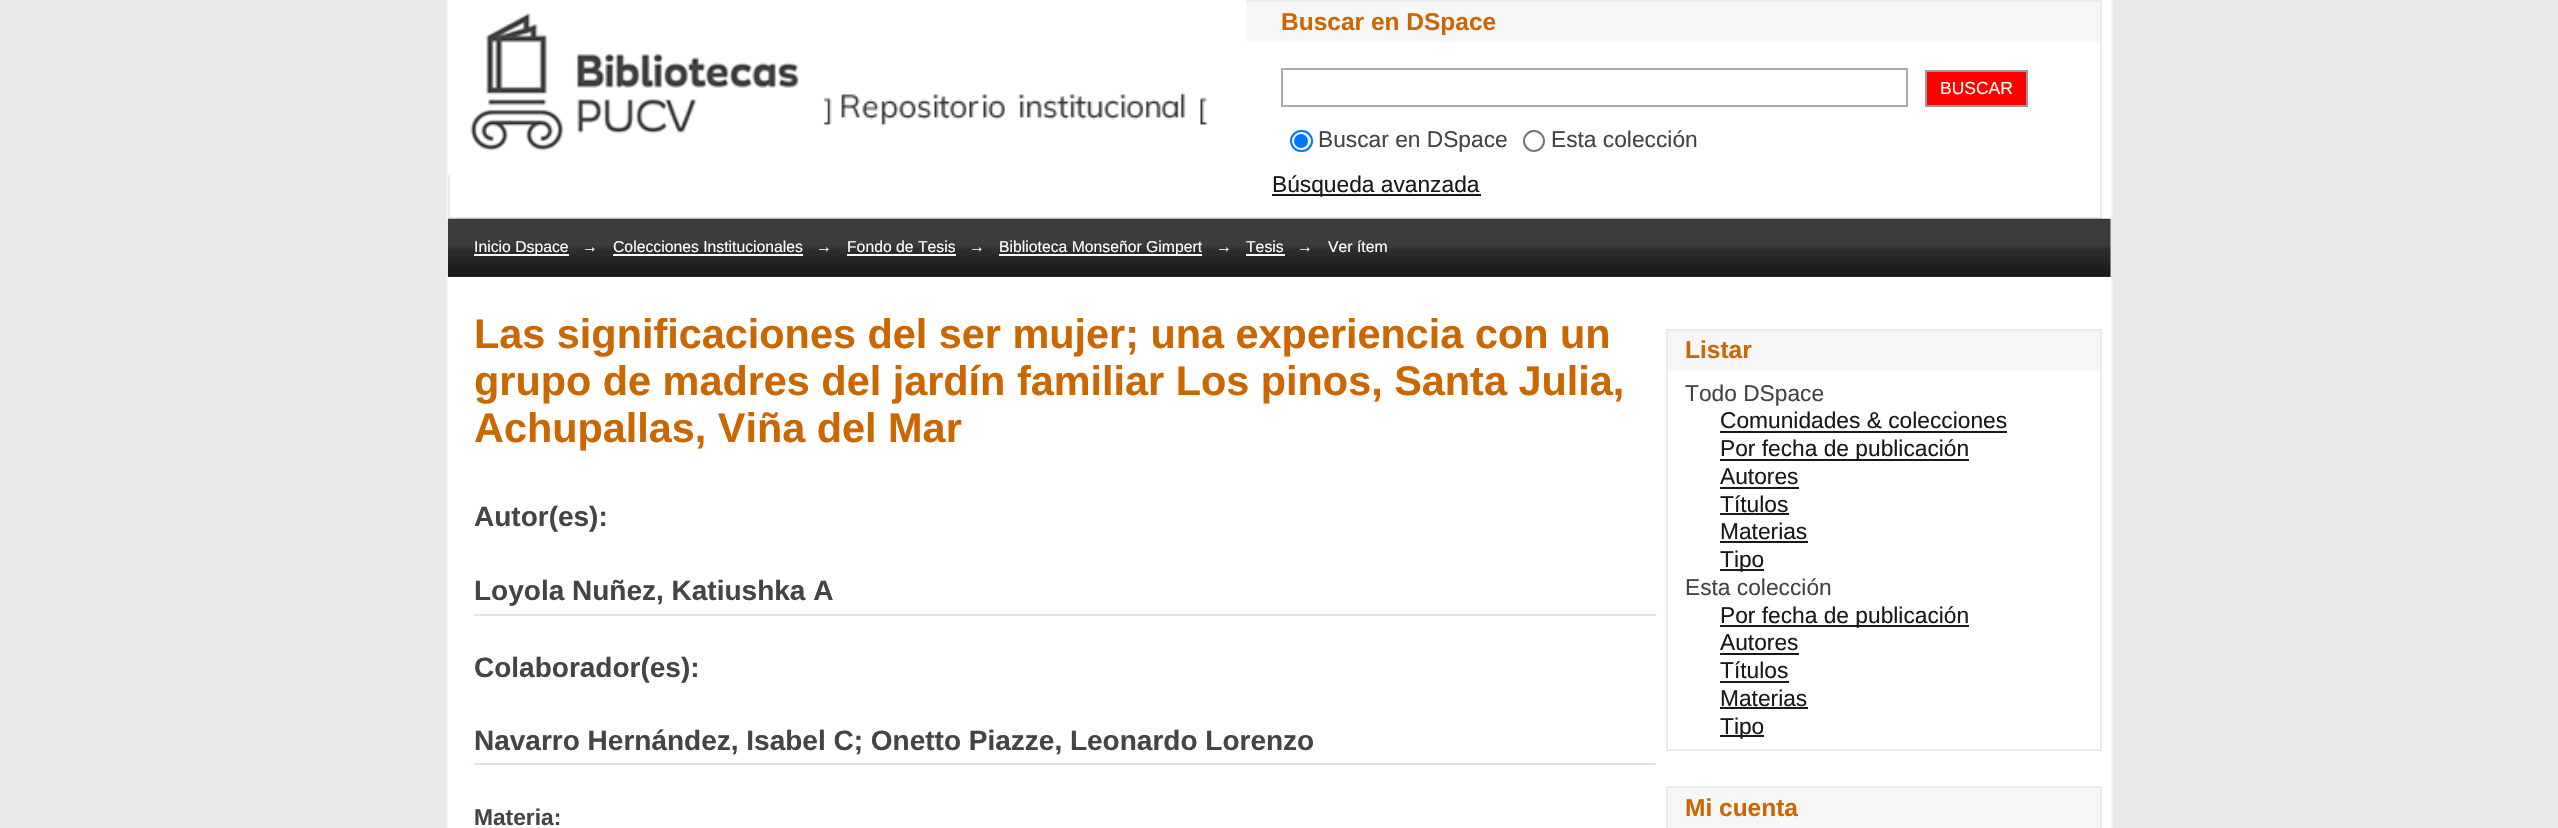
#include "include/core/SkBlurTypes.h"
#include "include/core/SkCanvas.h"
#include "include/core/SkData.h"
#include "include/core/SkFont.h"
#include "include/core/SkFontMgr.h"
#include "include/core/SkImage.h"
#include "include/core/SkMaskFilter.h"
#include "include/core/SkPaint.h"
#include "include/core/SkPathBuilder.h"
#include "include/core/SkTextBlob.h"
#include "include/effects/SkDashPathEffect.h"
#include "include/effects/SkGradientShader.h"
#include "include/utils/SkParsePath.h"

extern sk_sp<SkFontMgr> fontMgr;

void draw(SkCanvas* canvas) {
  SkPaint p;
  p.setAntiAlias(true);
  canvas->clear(SkColorSetRGB(233, 233, 233));
  p.setColor(SK_ColorWHITE);
  canvas->drawRect(SkRect::MakeLTRB(450, 0, 2111, 219), p);
  p.setColor(SkColorSetRGB(243, 243, 243));
  canvas->drawRect(SkRect::MakeLTRB(2111, 0, 2113, 219), p);
  canvas->drawRect(SkRect::MakeLTRB(446, 0, 448, 219), p);
  canvas->drawImageRect(SkImages::DeferredFromEncodedData(SkData::MakeFromFileName("images/1.png")), SkRect::MakeLTRB(448, 0, 1246, 175), SkSamplingOptions());
  p.setColor(SkColorSetRGB(247, 247, 247));
  canvas->drawRect(SkRect::MakeLTRB(1246, 2, 2100, 42), p);
  p.setColor(SkColorSetRGB(235, 235, 235));
  canvas->drawRect(SkRect::MakeLTRB(1246, 0, 2102, 2), p);
  canvas->drawRect(SkRect::MakeLTRB(2100, 0, 2102, 219), p);
  canvas->drawRect(SkRect::MakeLTRB(448, 217, 2102, 219), p);
  p.setStyle(SkPaint::kStroke_Style);
  p.setStrokeWidth(2);
  p.setColor(SkColorSetRGB(170, 170, 170));
  canvas->drawRect(SkRect::MakeLTRB(1282, 69, 1907, 106), p);
  p.setStyle(SkPaint::kFill_Style);
  p.setColor(SkColorSetRGB(255, 0, 0));
  canvas->drawRect(SkRect::MakeLTRB(1926, 71, 2027, 106), p);
  p.setStyle(SkPaint::kStroke_Style);
  p.setColor(SkColorSetRGB(153, 153, 153));
  canvas->drawRect(SkRect::MakeLTRB(1926, 71, 2027, 106), p);
  p.setColor(SkColorSetRGB(0, 117, 255));
  canvas->drawRoundRect(SkRect::MakeLTRB(1291, 131, 1312, 151), 10, 10, p);
  p.setStyle(SkPaint::kFill_Style);
  canvas->drawCircle(1301, 141, 7, p);
  p.setStyle(SkPaint::kStroke_Style);
  p.setColor(SkColorSetRGB(118, 118, 118));
  canvas->drawCircle(1534, 141, 10, p);
  p.setStyle(SkPaint::kFill_Style);
  p.setColor(SkColorSetRGB(25, 25, 25));
  canvas->drawRect(SkRect::MakeLTRB(1272, 194, 1481, 196), p);
  canvas->drawImageRect(SkImages::DeferredFromEncodedData(SkData::MakeFromFileName("images/2.png")), SkRect::MakeLTRB(448, 218, 2111, 277), SkSamplingOptions());
  p.setColor(SK_ColorWHITE);
  canvas->drawRect(SkRect::MakeLTRB(474, 254, 569, 256), p);
  canvas->drawRect(SkRect::MakeLTRB(613, 254, 803, 256), p);
  canvas->drawRect(SkRect::MakeLTRB(847, 254, 956, 256), p);
  canvas->drawRect(SkRect::MakeLTRB(999, 254, 1202, 256), p);
  canvas->drawRect(SkRect::MakeLTRB(1246, 254, 1285, 256), p);
  canvas->drawRect(SkRect::MakeLTRB(448, 277, 2111, 828), p);
  p.setColor(SkColorSetRGB(243, 243, 243));
  canvas->drawRect(SkRect::MakeLTRB(2111, 277, 2113, 828), p);
  canvas->drawRect(SkRect::MakeLTRB(446, 277, 448, 828), p);
  p.setColor(SkColorSetRGB(216, 232, 235));
  canvas->drawRect(SkRect::MakeLTRB(474, 614, 1656, 616), p);
  canvas->drawRect(SkRect::MakeLTRB(474, 763, 1656, 765), p);
  p.setColor(SkColorSetRGB(247, 247, 247));
  canvas->drawRect(SkRect::MakeLTRB(1668, 331, 2100, 371), p);
  p.setColor(SkColorSetRGB(235, 235, 235));
  canvas->drawRect(SkRect::MakeLTRB(1666, 329, 2102, 331), p);
  canvas->drawRect(SkRect::MakeLTRB(2100, 329, 2102, 751), p);
  canvas->drawRect(SkRect::MakeLTRB(1666, 329, 1668, 371), p);
  canvas->drawRect(SkRect::MakeLTRB(1666, 749, 2102, 751), p);
  canvas->drawRect(SkRect::MakeLTRB(1666, 371, 1668, 751), p);
  p.setColor(SkColorSetRGB(25, 25, 25));
  canvas->drawRect(SkRect::MakeLTRB(1720, 431, 2007, 433), p);
  canvas->drawRect(SkRect::MakeLTRB(1720, 459, 1969, 461), p);
  canvas->drawRect(SkRect::MakeLTRB(1720, 487, 1799, 489), p);
  canvas->drawRect(SkRect::MakeLTRB(1720, 513, 1789, 515), p);
  canvas->drawRect(SkRect::MakeLTRB(1720, 541, 1808, 543), p);
  canvas->drawRect(SkRect::MakeLTRB(1720, 569, 1764, 571), p);
  canvas->drawRect(SkRect::MakeLTRB(1720, 625, 1969, 627), p);
  canvas->drawRect(SkRect::MakeLTRB(1720, 653, 1799, 655), p);
  canvas->drawRect(SkRect::MakeLTRB(1720, 681, 1789, 683), p);
  canvas->drawRect(SkRect::MakeLTRB(1720, 707, 1808, 709), p);
  canvas->drawRect(SkRect::MakeLTRB(1720, 735, 1764, 737), p);
  p.setColor(SkColorSetRGB(247, 247, 247));
  canvas->drawRect(SkRect::MakeLTRB(1668, 788, 2100, 828), p);
  p.setColor(SkColorSetRGB(235, 235, 235));
  canvas->drawRect(SkRect::MakeLTRB(1666, 786, 2102, 788), p);
  canvas->drawRect(SkRect::MakeLTRB(2100, 786, 2102, 828), p);
  canvas->drawRect(SkRect::MakeLTRB(1666, 786, 1668, 828), p);
  SkFont font1(fontMgr->matchFamilyStyle("Liberation Sans", SkFontStyle::Bold()), 24.5f);
  font1.setSubpixel(true);
  p.setColor(SkColorSetRGB(204, 102, 0));
  canvas->drawString("Buscar en DSpace", 1281, 30, font1, p);
  SkFont font2(fontMgr->matchFamilyStyle("Liberation Sans", SkFontStyle::Normal()), 17.5f);
  font2.setSubpixel(true);
  p.setColor(SK_ColorWHITE);
  canvas->drawString("BUSCAR", 1940, 94, font2, p);
  SkFont font3(fontMgr->matchFamilyStyle("Liberation Sans", SkFontStyle::Normal()), 22.75f);
  font3.setSubpixel(true);
  p.setColor(SkColorSetRGB(68, 68, 68));
  canvas->drawString("Buscar en DSpace", 1318, 147, font3, p);
  canvas->drawString("Esta colección", 1551, 147, font3, p);
  p.setColor(SkColorSetRGB(25, 25, 25));
  canvas->drawString("Búsqueda avanzada", 1272, 192, font3, p);
  SkFont font4(fontMgr->matchFamilyStyle("Liberation Sans", SkFontStyle::Normal()), 15.75f);
  font4.setSubpixel(true);
  p.setColor(SK_ColorWHITE);
  canvas->drawString("Inicio Dspace", 474, 252, font4, p);
  canvas->drawString("→", 582, 252, font4, p);
  canvas->drawString("Colecciones Institucionales", 613, 252, font4, p);
  canvas->drawString("→", 816, 252, font4, p);
  canvas->drawString("Fondo de Tesis", 847, 252, font4, p);
  canvas->drawString("→", 969, 252, font4, p);
  canvas->drawString("Biblioteca Monseñor Gimpert", 999, 252, font4, p);
  canvas->drawString("→", 1216, 252, font4, p);
  canvas->drawString("Tesis", 1246, 252, font4, p);
  canvas->drawString("→", 1297, 252, font4, p);
  canvas->drawString("Ver ítem", 1328, 252, font4, p);
  SkFont font5(fontMgr->matchFamilyStyle("Liberation Sans", SkFontStyle::Bold()), 41.4f);
  font5.setSubpixel(true);
  p.setColor(SkColorSetRGB(204, 102, 0));
  canvas->drawString("Las significaciones del ser mujer; una experiencia con un", 474, 348, font5, p);
  canvas->drawString("grupo de madres del jardín familiar Los pinos, Santa Julia,", 474, 395, font5, p);
  canvas->drawString("Achupallas, Viña del Mar", 474, 442, font5, p);
  SkFont font6(fontMgr->matchFamilyStyle("Liberation Sans", SkFontStyle::Bold()), 28);
  font6.setSubpixel(true);
  p.setColor(SkColorSetRGB(68, 68, 68));
  canvas->drawString("Autor(es):", 474, 526, font6, p);
  canvas->drawString("Loyola Nuñez, Katiushka A", 474, 600, font6, p);
  canvas->drawString("Colaborador(es):", 474, 677, font6, p);
  canvas->drawString("Navarro Hernández, Isabel C; Onetto Piazze, Leonardo Lorenzo", 474, 750, font6, p);
  SkFont font7(fontMgr->matchFamilyStyle("Liberation Sans", SkFontStyle::Bold()), 22.75f);
  font7.setSubpixel(true);
  canvas->drawString("Materia:", 474, 825, font7, p);
  p.setColor(SkColorSetRGB(204, 102, 0));
  canvas->drawString("Listar", 1685, 358, font1, p);
  p.setColor(SkColorSetRGB(68, 68, 68));
  canvas->drawString("Todo DSpace", 1685, 401, font3, p);
  p.setColor(SkColorSetRGB(25, 25, 25));
  canvas->drawString("Comunidades & colecciones", 1720, 428, font3, p);
  canvas->drawString("Por fecha de publicación", 1720, 456, font3, p);
  canvas->drawString("Autores", 1720, 484, font3, p);
  canvas->drawString("Títulos", 1720, 512, font3, p);
  canvas->drawString("Materias", 1720, 539, font3, p);
  canvas->drawString("Tipo", 1720, 567, font3, p);
  p.setColor(SkColorSetRGB(68, 68, 68));
  canvas->drawString("Esta colección", 1685, 595, font3, p);
  p.setColor(SkColorSetRGB(25, 25, 25));
  canvas->drawString("Por fecha de publicación", 1720, 623, font3, p);
  canvas->drawString("Autores", 1720, 650, font3, p);
  canvas->drawString("Títulos", 1720, 678, font3, p);
  canvas->drawString("Materias", 1720, 706, font3, p);
  canvas->drawString("Tipo", 1720, 734, font3, p);
  p.setColor(SkColorSetRGB(204, 102, 0));
  canvas->drawString("Mi cuenta", 1685, 816, font1, p);
}
